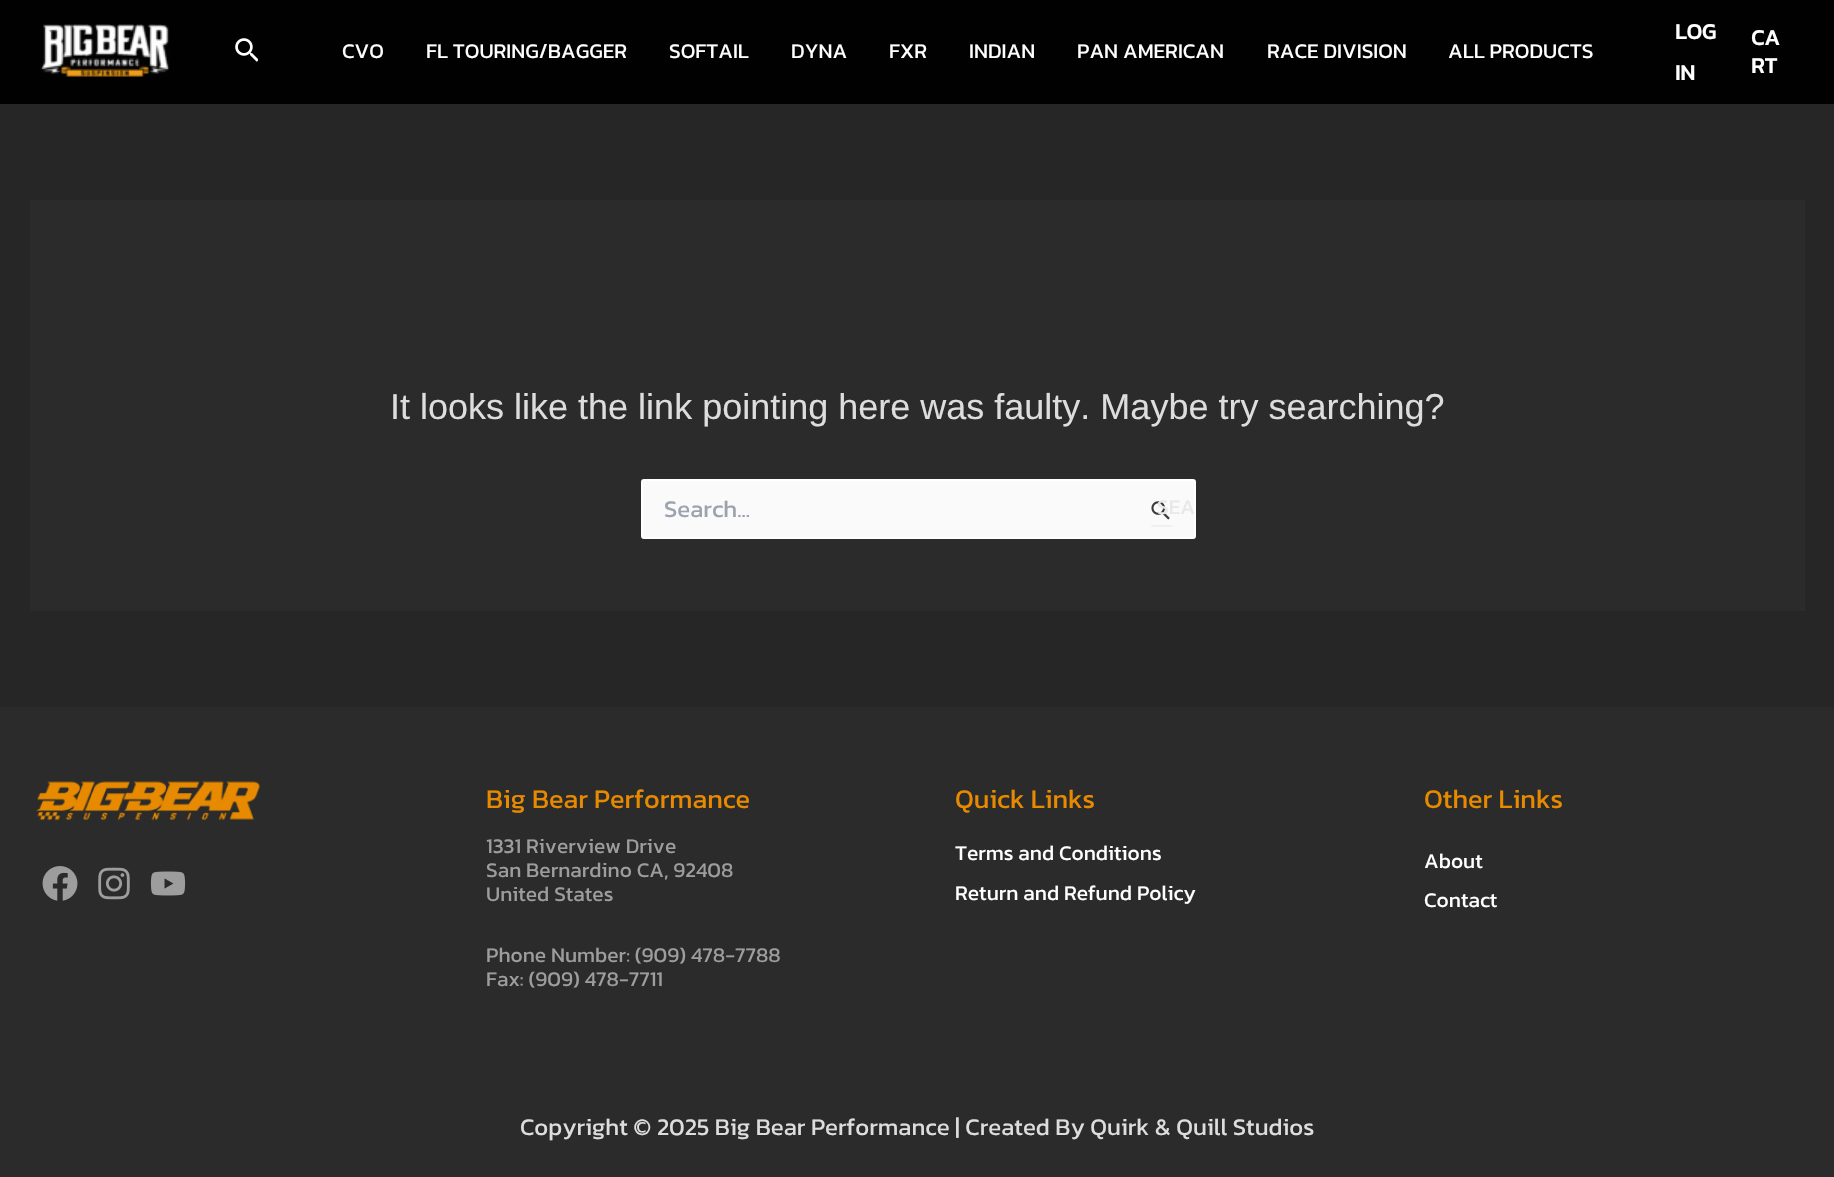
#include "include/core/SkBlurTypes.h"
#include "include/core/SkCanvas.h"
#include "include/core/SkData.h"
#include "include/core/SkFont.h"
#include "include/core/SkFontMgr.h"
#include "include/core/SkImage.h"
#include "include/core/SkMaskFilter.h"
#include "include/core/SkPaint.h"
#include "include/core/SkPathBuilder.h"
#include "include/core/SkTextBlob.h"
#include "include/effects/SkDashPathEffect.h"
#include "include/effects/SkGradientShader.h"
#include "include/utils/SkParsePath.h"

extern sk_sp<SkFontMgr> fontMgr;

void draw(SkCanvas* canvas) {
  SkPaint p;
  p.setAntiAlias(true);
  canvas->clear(SkColorSetRGB(38, 38, 38));
  p.setColor(SkColorSetRGB(1, 1, 1));
  canvas->drawRect(SkRect::MakeLTRB(0, 0, 1834, 104), p);
  canvas->drawImageRect(SkImages::DeferredFromEncodedData(SkData::MakeFromFileName("images/1.png")), SkRect::MakeLTRB(40, 24, 170, 77), SkSamplingOptions());
  canvas->drawImageRect(SkImages::DeferredFromEncodedData(SkData::MakeFromFileName("images/2.png")), SkRect::MakeLTRB(235, 38, 258, 62), SkSamplingOptions());
  p.setColor(SkColorSetRGB(43, 43, 43));
  canvas->drawRect(SkRect::MakeLTRB(30, 200, 1805, 611), p);
  p.setColor(SkColorSetRGB(250, 250, 250));
  canvas->drawRoundRect(SkRect::MakeLTRB(642, 480, 1195, 538), 2, 2, p);
  p.setStyle(SkPaint::kStroke_Style);
  p.setStrokeWidth(2);
  p.setColor(SK_ColorWHITE);
  canvas->drawRoundRect(SkRect::MakeLTRB(642, 480, 1195, 538), 2, 2, p);
  canvas->save();
  canvas->clipRect(SkRect::MakeLTRB(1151, 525, 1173, 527));
  p.setStyle(SkPaint::kFill_Style);
  p.setColor(SkColorSetARGB(13, 0, 0, 0));
  p.setMaskFilter(SkMaskFilter::MakeBlur(kNormal_SkBlurStyle, 1.5f));
  canvas->drawRect(SkRect::MakeLTRB(1151, 497, 1173, 527), p);
  p.setMaskFilter(nullptr);
  canvas->restore();
  canvas->drawImageRect(SkImages::DeferredFromEncodedData(SkData::MakeFromFileName("images/3.png")), SkRect::MakeLTRB(1151, 501, 1170, 520), SkSamplingOptions());
  p.setColor(SkColorSetRGB(43, 43, 43));
  canvas->drawRect(SkRect::MakeLTRB(0, 707, 1834, 1177), p);
  canvas->drawImageRect(SkImages::DeferredFromEncodedData(SkData::MakeFromFileName("images/4.png")), SkRect::MakeLTRB(36, 781, 260, 821), SkSamplingOptions());
  canvas->drawImageRect(SkImages::DeferredFromEncodedData(SkData::MakeFromFileName("images/5.png")), SkRect::MakeLTRB(42, 866, 78, 901), SkSamplingOptions());
  canvas->drawImageRect(SkImages::DeferredFromEncodedData(SkData::MakeFromFileName("images/6.png")), SkRect::MakeLTRB(98, 867, 130, 900), SkSamplingOptions());
  canvas->drawImageRect(SkImages::DeferredFromEncodedData(SkData::MakeFromFileName("images/7.png")), SkRect::MakeLTRB(150, 871, 186, 896), SkSamplingOptions());
  SkFont font1(fontMgr->matchFamilyStyle("Kanit", SkFontStyle::Normal()), 21);
  font1.setSubpixel(true);
  p.setColor(SK_ColorWHITE);
  canvas->drawString("CVO", 342, 58, font1, p);
  canvas->drawString("FL TOURING/BAGGER", 426, 58, font1, p);
  canvas->drawString("SOFTAIL", 669, 58, font1, p);
  canvas->drawString("DYNA", 791, 58, font1, p);
  canvas->drawString("FXR", 889, 58, font1, p);
  canvas->drawString("INDIAN", 969, 58, font1, p);
  canvas->drawString("PAN AMERICAN", 1077, 58, font1, p);
  canvas->drawString("RACE DIVISION", 1267, 58, font1, p);
  canvas->drawString("ALL PRODUCTS", 1448, 58, font1, p);
  SkFont font2(fontMgr->matchFamilyStyle("Kanit", SkFontStyle::Bold()), 22);
  font2.setSubpixel(true);
  canvas->drawString("LOG", 1675, 39, font2, p);
  canvas->drawString("IN", 1675, 80, font2, p);
  canvas->drawString("CA", 1751, 45, font2, p);
  canvas->drawString("RT", 1751, 73, font2, p);
  SkFont font3(fontMgr->matchFamilyStyle("Liberation Sans", SkFontStyle::Normal()), 36);
  font3.setSubpixel(true);
  p.setColor(SkColorSetRGB(221, 221, 222));
  canvas->drawString("It looks like the link pointing here was faulty. Maybe try searching?", 390, 419, font3, p);
  canvas->save();
  canvas->clipRect(SkRect::MakeLTRB(665, 491, 1121, 527));
  SkFont font4(fontMgr->matchFamilyStyle("Kanit", SkFontStyle::Normal()), 24);
  font4.setSubpixel(true);
  p.setColor(SkColorSetRGB(156, 163, 175));
  canvas->drawString("Search...", 664, 517, font4, p);
  canvas->restore();
  p.setColor(SkColorSetRGB(232, 232, 232));
  canvas->drawString("SEA", 1157, 514, font1, p);
  SkFont font5(fontMgr->matchFamilyStyle("Kanit", SkFontStyle::Normal()), 27);
  font5.setSubpixel(true);
  p.setColor(SkColorSetRGB(231, 138, 0));
  canvas->drawString("Big Bear Performance", 486, 808, font5, p);
  p.setColor(SkColorSetRGB(157, 157, 157));
  canvas->drawString("1331 Riverview Drive", 486, 853, font1, p);
  canvas->drawString("San Bernardino CA, 92408", 486, 877, font1, p);
  canvas->drawString("United States", 486, 901, font1, p);
  canvas->drawString("Phone Number: (909) 478-7788", 486, 962, font1, p);
  canvas->drawString("Fax: (909) 478-7711", 486, 986, font1, p);
  p.setColor(SkColorSetRGB(231, 138, 0));
  canvas->drawString("Quick Links", 955, 808, font5, p);
  p.setColor(SK_ColorWHITE);
  canvas->drawString("Terms and Conditions", 955, 860, font1, p);
  canvas->drawString("Return and Refund Policy", 955, 900, font1, p);
  p.setColor(SkColorSetRGB(231, 138, 0));
  canvas->drawString("Other Links", 1424, 808, font5, p);
  p.setColor(SK_ColorWHITE);
  canvas->drawString("About", 1424, 868, font1, p);
  canvas->drawString("Contact", 1424, 907, font1, p);
  p.setColor(SkColorSetRGB(221, 221, 222));
  canvas->drawString("Copyright © 2025 Big Bear Performance | Created By Quirk & Quill Studios", 520, 1135, font4, p);
}
